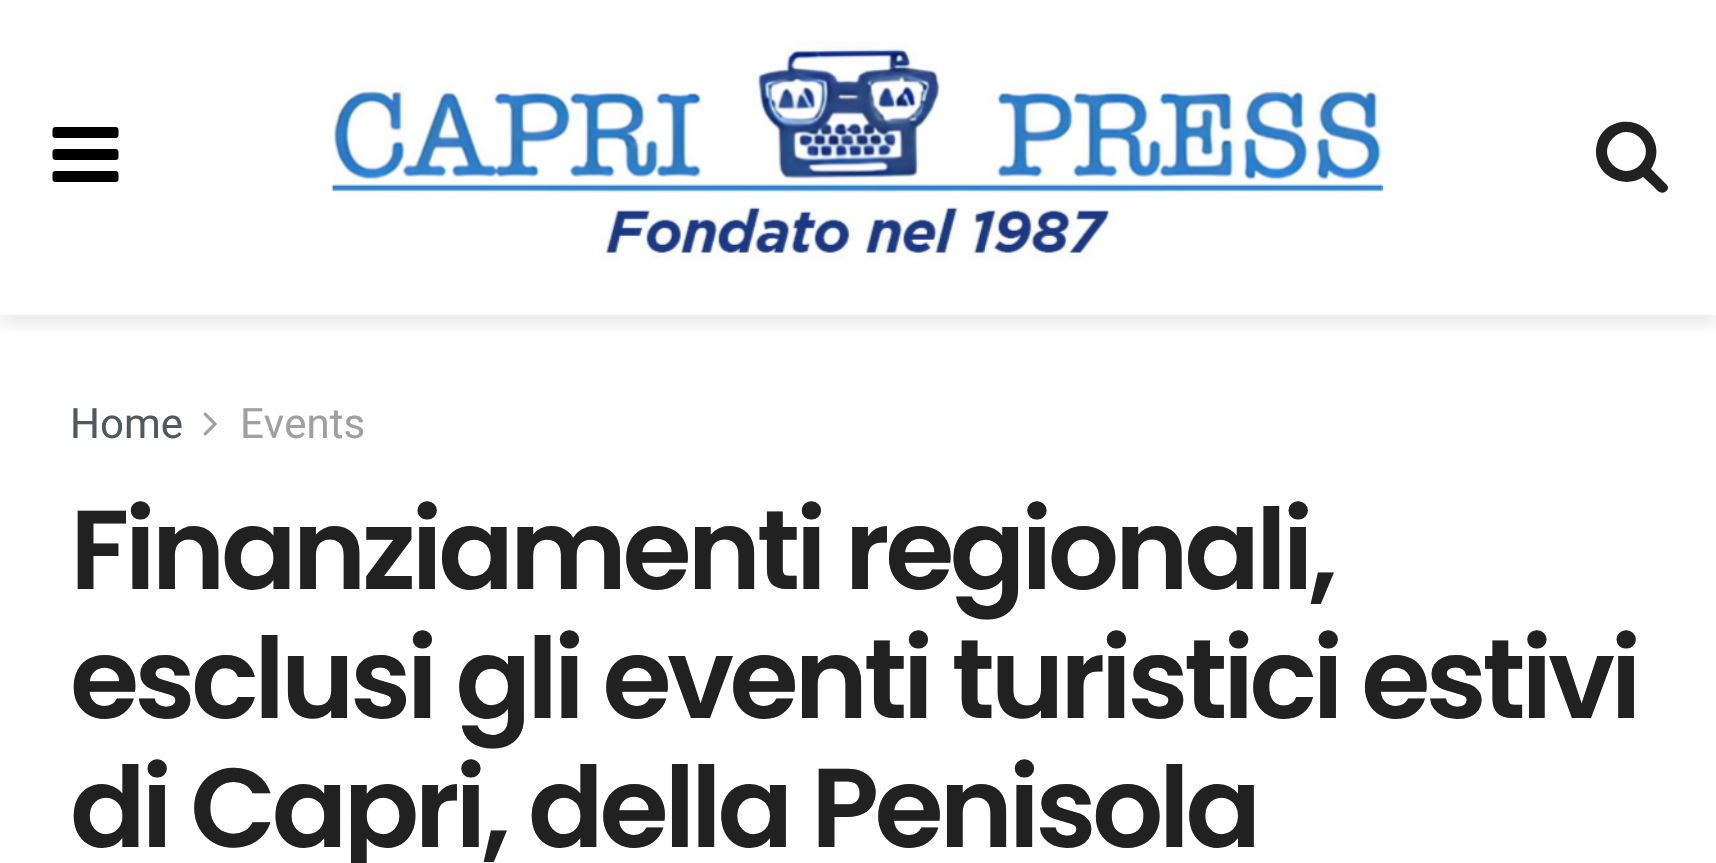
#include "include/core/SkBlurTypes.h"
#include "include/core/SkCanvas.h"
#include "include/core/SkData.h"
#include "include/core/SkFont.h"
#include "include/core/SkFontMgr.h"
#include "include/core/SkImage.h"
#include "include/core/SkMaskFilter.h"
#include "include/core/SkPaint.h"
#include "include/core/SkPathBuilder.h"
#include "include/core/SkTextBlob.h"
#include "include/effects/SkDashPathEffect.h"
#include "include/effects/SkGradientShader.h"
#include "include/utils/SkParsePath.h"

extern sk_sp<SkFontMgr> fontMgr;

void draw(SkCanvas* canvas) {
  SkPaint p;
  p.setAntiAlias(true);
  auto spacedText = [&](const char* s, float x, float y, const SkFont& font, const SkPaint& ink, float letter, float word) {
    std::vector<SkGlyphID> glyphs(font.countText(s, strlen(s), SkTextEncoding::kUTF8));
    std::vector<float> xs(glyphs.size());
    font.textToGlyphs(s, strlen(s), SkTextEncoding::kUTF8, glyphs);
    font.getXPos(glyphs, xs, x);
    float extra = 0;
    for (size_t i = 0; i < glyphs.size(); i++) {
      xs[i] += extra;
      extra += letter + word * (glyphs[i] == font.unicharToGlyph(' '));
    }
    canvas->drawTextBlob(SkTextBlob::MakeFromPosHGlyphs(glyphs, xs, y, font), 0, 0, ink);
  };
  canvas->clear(SK_ColorWHITE);
  canvas->save();
  canvas->clipRect(SkRect::MakeLTRB(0, 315, 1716, 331));
  p.setColor(SkColorSetARGB(26, 0, 0, 0));
  p.setMaskFilter(SkMaskFilter::MakeBlur(kNormal_SkBlurStyle, 10.5f));
  canvas->drawRect(SkRect::MakeLTRB(0, 7, 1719, 322), p);
  p.setMaskFilter(nullptr);
  canvas->restore();
  canvas->drawImageRect(SkImages::DeferredFromEncodedData(SkData::MakeFromFileName("images/1.png")), SkRect::MakeLTRB(52, 127, 119, 182), SkSamplingOptions());
  canvas->drawImageRect(SkImages::DeferredFromEncodedData(SkData::MakeFromFileName("images/2.png")), SkRect::MakeLTRB(331, 42, 1383, 259), SkSamplingOptions());
  p.setColor(SkColorSetRGB(33, 33, 33));
  canvas->drawPath(SkPathBuilder().moveTo(1640, 165).cubicTo(1658, 147, 1631, 120, 1613, 138).cubicTo(1595, 156, 1622, 183, 1640, 165).close().moveTo(1668, 188).cubicTo(1668, 189, 1667, 191, 1665, 192).cubicTo(1660, 195, 1656, 189, 1653, 186).lineTo(1643, 177).cubicTo(1628, 187, 1607, 181, 1599, 165).cubicTo(1596, 158, 1595, 151, 1597, 144).cubicTo(1604, 115, 1646, 114, 1655, 143).cubicTo(1658, 152, 1656, 161, 1651, 169).lineTo(1666, 184).cubicTo(1667, 185, 1668, 186, 1668, 188).close().detach(), p);
  canvas->drawImageRect(SkImages::DeferredFromEncodedData(SkData::MakeFromFileName("images/3.png")), SkRect::MakeLTRB(203, 412, 217, 436), SkSamplingOptions());
  SkFont font1(fontMgr->matchFamilyStyle("Heebo", SkFontStyle::Normal()), 42);
  font1.setSubpixel(true);
  p.setColor(SkColorSetRGB(83, 88, 92));
  canvas->drawString("Home", 70, 438, font1, p);
  p.setColor(SkColorSetRGB(160, 160, 160));
  canvas->drawString("Events", 240, 438, font1, p);
  SkFont font2(fontMgr->matchFamilyStyle("Poppins", SkFontStyle(600, SkFontStyle::kNormal_Width, SkFontStyle::kUpright_Slant)), 112);
  font2.setSubpixel(true);
  p.setColor(SkColorSetRGB(33, 33, 33));
  spacedText("Finanziamenti regionali,", 70, 589, font2, p, -4.5f, 0);
  spacedText("esclusi gli eventi turistici estivi", 70, 718, font2, p, -4.5f, 0);
  spacedText("di Capri, della Penisola", 70, 847, font2, p, -4.5f, 0);
}
